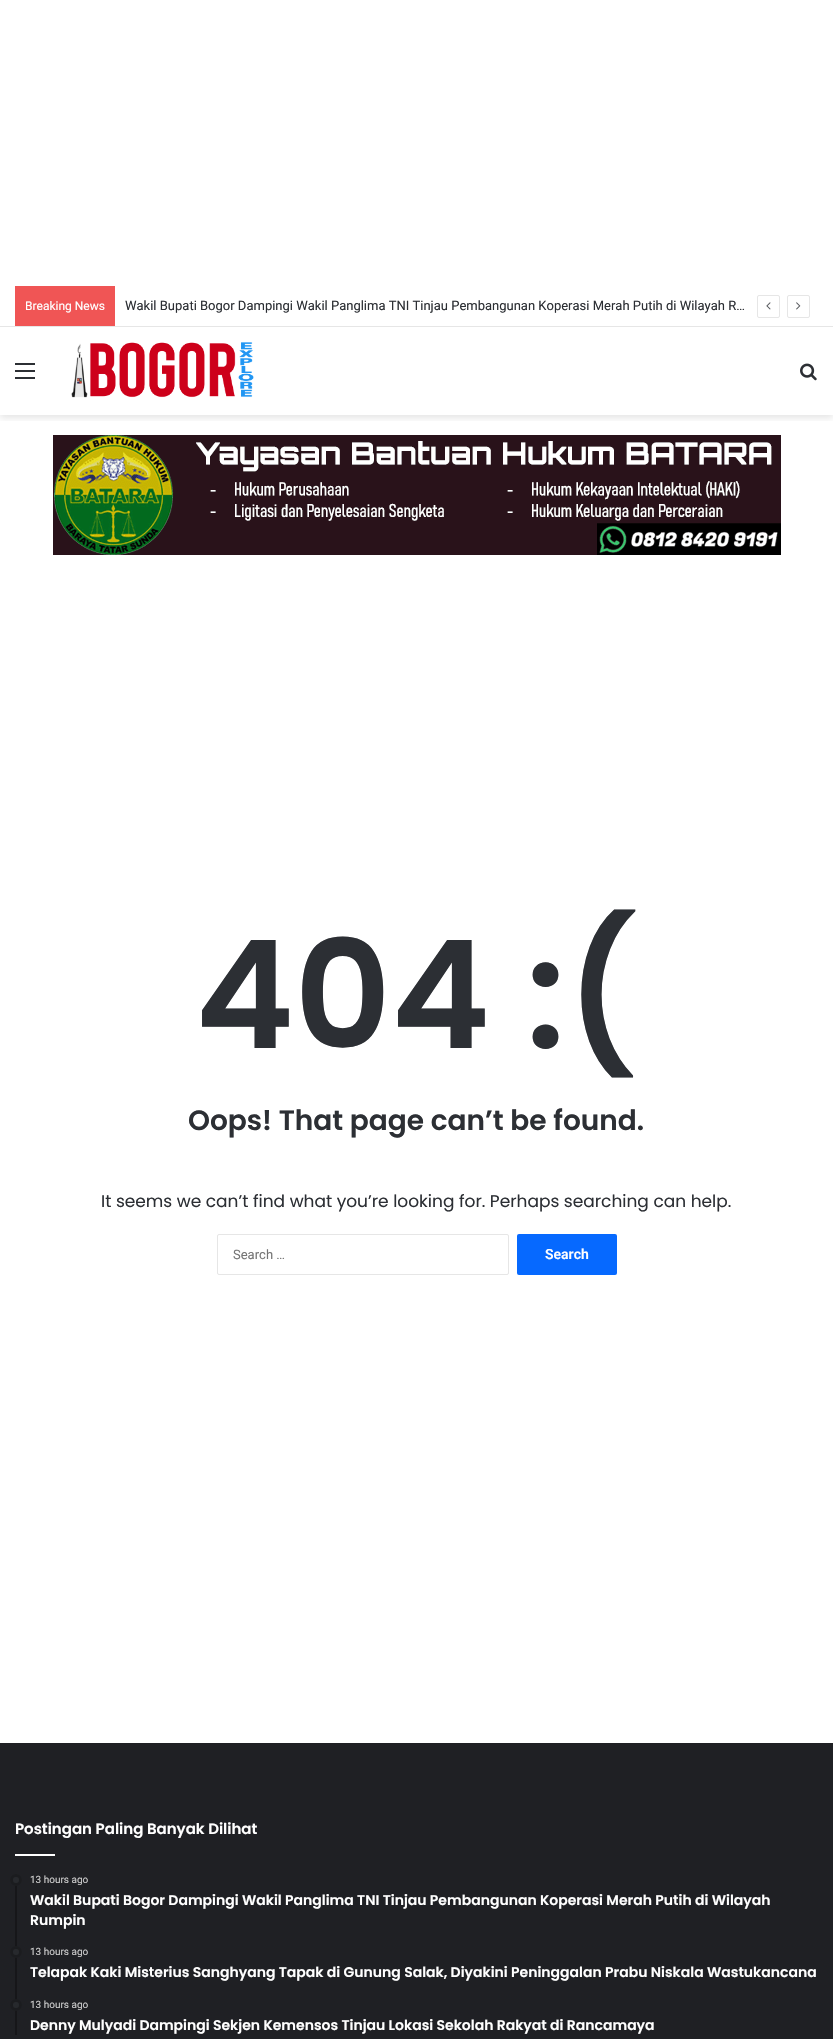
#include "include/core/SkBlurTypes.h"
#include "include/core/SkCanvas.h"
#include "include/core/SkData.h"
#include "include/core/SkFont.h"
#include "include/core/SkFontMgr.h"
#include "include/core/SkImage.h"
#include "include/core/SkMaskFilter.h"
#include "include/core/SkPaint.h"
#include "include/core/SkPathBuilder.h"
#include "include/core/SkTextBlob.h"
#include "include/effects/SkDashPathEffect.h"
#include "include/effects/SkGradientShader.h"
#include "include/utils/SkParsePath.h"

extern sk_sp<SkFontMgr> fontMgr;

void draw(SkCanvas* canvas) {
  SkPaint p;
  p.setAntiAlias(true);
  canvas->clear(SK_ColorWHITE);
  canvas->save();
  canvas->clipRect(SkRect::MakeLTRB(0, 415, 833, 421));
  p.setColor(SkColorSetARGB(26, 0, 0, 0));
  p.setMaskFilter(SkMaskFilter::MakeBlur(kNormal_SkBlurStyle, 3.5f));
  canvas->drawRect(SkRect::MakeLTRB(0, 330, 833, 418), p);
  p.setMaskFilter(nullptr);
  canvas->restore();
  p.setColor(SkColorSetRGB(230, 230, 230));
  canvas->drawRect(SkRect::MakeLTRB(0, 326, 833, 327), p);
  p.setColor(SkColorSetRGB(240, 85, 85));
  canvas->drawRect(SkRect::MakeLTRB(15, 286, 115, 326), p);
  p.setStyle(SkPaint::kStroke_Style);
  p.setStrokeWidth(1);
  p.setColor(SkColorSetRGB(230, 230, 230));
  canvas->drawRoundRect(SkRect::MakeLTRB(757.5f, 295.5f, 779.5f, 317.5f), 1.5f, 1.5f, p);
  canvas->drawImageRect(SkImages::DeferredFromEncodedData(SkData::MakeFromFileName("images/1.png")), SkRect::MakeLTRB(766, 302, 771, 310), SkSamplingOptions());
  canvas->drawRoundRect(SkRect::MakeLTRB(787.5f, 295.5f, 809.5f, 317.5f), 1.5f, 1.5f, p);
  canvas->drawImageRect(SkImages::DeferredFromEncodedData(SkData::MakeFromFileName("images/2.png")), SkRect::MakeLTRB(796, 302, 801, 310), SkSamplingOptions());
  p.setStyle(SkPaint::kFill_Style);
  p.setColor(SkColorSetRGB(44, 47, 52));
  canvas->drawRect(SkRect::MakeLTRB(15, 370, 35, 372), p);
  canvas->drawRect(SkRect::MakeLTRB(15, 363, 35, 365), p);
  canvas->drawRect(SkRect::MakeLTRB(15, 377, 35, 379), p);
  canvas->drawImageRect(SkImages::DeferredFromEncodedData(SkData::MakeFromFileName("images/3.png")), SkRect::MakeLTRB(71, 342, 254, 398), SkSamplingOptions());
  canvas->drawImageRect(SkImages::DeferredFromEncodedData(SkData::MakeFromFileName("images/4.png")), SkRect::MakeLTRB(800, 363, 817, 381), SkSamplingOptions());
  canvas->drawImageRect(SkImages::DeferredFromEncodedData(SkData::MakeFromFileName("images/5.png")), SkRect::MakeLTRB(53, 435, 781, 555), SkSamplingOptions());
  p.setStyle(SkPaint::kStroke_Style);
  p.setColor(SkColorSetRGB(230, 230, 230));
  canvas->drawRoundRect(SkRect::MakeLTRB(217.5f, 1234.5f, 508.5f, 1274.5f), 1.5f, 1.5f, p);
  p.setStyle(SkPaint::kFill_Style);
  p.setColor(SkColorSetRGB(6, 105, 255));
  canvas->drawRoundRect(SkRect::MakeLTRB(517, 1234, 617, 1275), 2, 2, p);
  p.setColor(SkColorSetRGB(31, 32, 36));
  canvas->drawRect(SkRect::MakeLTRB(0, 1743, 833, 2039), p);
  p.setColor(SK_ColorWHITE);
  canvas->drawRect(SkRect::MakeLTRB(15, 1854, 55, 1856), p);
  p.setColor(SkColorSetRGB(22, 22, 25));
  canvas->drawRect(SkRect::MakeLTRB(15, 1874, 17, 2035), p);
  p.setColor(SkColorSetRGB(39, 41, 45));
  canvas->drawCircle(16, 1880, 4.5f, p);
  p.setStyle(SkPaint::kStroke_Style);
  p.setStrokeWidth(3);
  p.setColor(SkColorSetRGB(27, 28, 31));
  canvas->drawCircle(16, 1880, 4.5f, p);
  p.setStyle(SkPaint::kFill_Style);
  p.setColor(SkColorSetRGB(39, 41, 45));
  canvas->drawCircle(16, 1952, 4.5f, p);
  p.setStyle(SkPaint::kStroke_Style);
  p.setColor(SkColorSetRGB(27, 28, 31));
  canvas->drawCircle(16, 1952, 4.5f, p);
  p.setStyle(SkPaint::kFill_Style);
  p.setColor(SkColorSetRGB(39, 41, 45));
  canvas->drawCircle(16, 2005, 4.5f, p);
  p.setStyle(SkPaint::kStroke_Style);
  p.setColor(SkColorSetRGB(27, 28, 31));
  canvas->drawCircle(16, 2005, 4.5f, p);
  SkFont font1(fontMgr->matchFamilyStyle("Roboto", SkFontStyle::Normal()), 12);
  font1.setSubpixel(true);
  p.setStyle(SkPaint::kFill_Style);
  p.setColor(SK_ColorWHITE);
  canvas->drawString("Breaking News", 25, 310, font1, p);
  SkFont font2(fontMgr->matchFamilyStyle("Roboto", SkFontStyle::Normal()), 13);
  font2.setSubpixel(true);
  p.setColor(SkColorSetRGB(44, 47, 52));
  canvas->drawString("Wakil Bupati Bogor Dampingi Wakil Panglima TNI Tinjau Pembangunan Koperasi Merah Putih di Wilayah R…", 125, 310, font2, p);
  SkFont font3(fontMgr->matchFamilyStyle("Poppins", SkFontStyle(600, SkFontStyle::kNormal_Width, SkFontStyle::kUpright_Slant)), 150);
  font3.setSubpixel(true);
  canvas->drawString("404 :(", 195, 1048, font3, p);
  SkFont font4(fontMgr->matchFamilyStyle("Poppins", SkFontStyle(600, SkFontStyle::kNormal_Width, SkFontStyle::kUpright_Slant)), 28);
  font4.setSubpixel(true);
  canvas->drawString("Oops! That page can’t be found.", 188, 1130, font4, p);
  SkFont font5(fontMgr->matchFamilyStyle("Poppins", SkFontStyle::Normal()), 17);
  font5.setSubpixel(true);
  canvas->drawString("It seems we can’t find what you’re looking for. Perhaps searching can help.", 101, 1207, font5, p);
  p.setColor(SkColorSetRGB(117, 117, 117));
  canvas->drawString("Search …", 233, 1259, font2, p);
  SkFont font6(fontMgr->matchFamilyStyle("Roboto", SkFontStyle(600, SkFontStyle::kNormal_Width, SkFontStyle::kUpright_Slant)), 14);
  font6.setSubpixel(true);
  p.setColor(SK_ColorWHITE);
  canvas->drawString("Search", 545, 1259, font6, p);
  SkFont font7(fontMgr->matchFamilyStyle("Poppins", SkFontStyle(600, SkFontStyle::kNormal_Width, SkFontStyle::kUpright_Slant)), 15);
  font7.setSubpixel(true);
  canvas->drawString("Postingan Paling Banyak Dilihat", 15, 1834, font7, p);
  SkFont font8(fontMgr->matchFamilyStyle("Roboto", SkFontStyle::Normal()), 10);
  font8.setSubpixel(true);
  p.setColor(SkColorSetRGB(204, 204, 204));
  canvas->drawString("13 hours ago", 30, 1883, font8, p);
  SkFont font9(fontMgr->matchFamilyStyle("Poppins", SkFontStyle(600, SkFontStyle::kNormal_Width, SkFontStyle::kUpright_Slant)), 14);
  font9.setSubpixel(true);
  p.setColor(SK_ColorWHITE);
  canvas->drawString("Wakil Bupati Bogor Dampingi Wakil Panglima TNI Tinjau Pembangunan Koperasi Merah Putih di Wilayah", 30, 1905, font9, p);
  canvas->drawString("Rumpin", 30, 1925, font9, p);
  p.setColor(SkColorSetRGB(204, 204, 204));
  canvas->drawString("13 hours ago", 30, 1955, font8, p);
  p.setColor(SK_ColorWHITE);
  canvas->drawString("Telapak Kaki Misterius Sanghyang Tapak di Gunung Salak, Diyakini Peninggalan Prabu Niskala Wastukancana", 30, 1977, font9, p);
  p.setColor(SkColorSetRGB(204, 204, 204));
  canvas->drawString("13 hours ago", 30, 2008, font8, p);
  p.setColor(SK_ColorWHITE);
  canvas->drawString("Denny Mulyadi Dampingi Sekjen Kemensos Tinjau Lokasi Sekolah Rakyat di Rancamaya", 30, 2030, font9, p);
}
